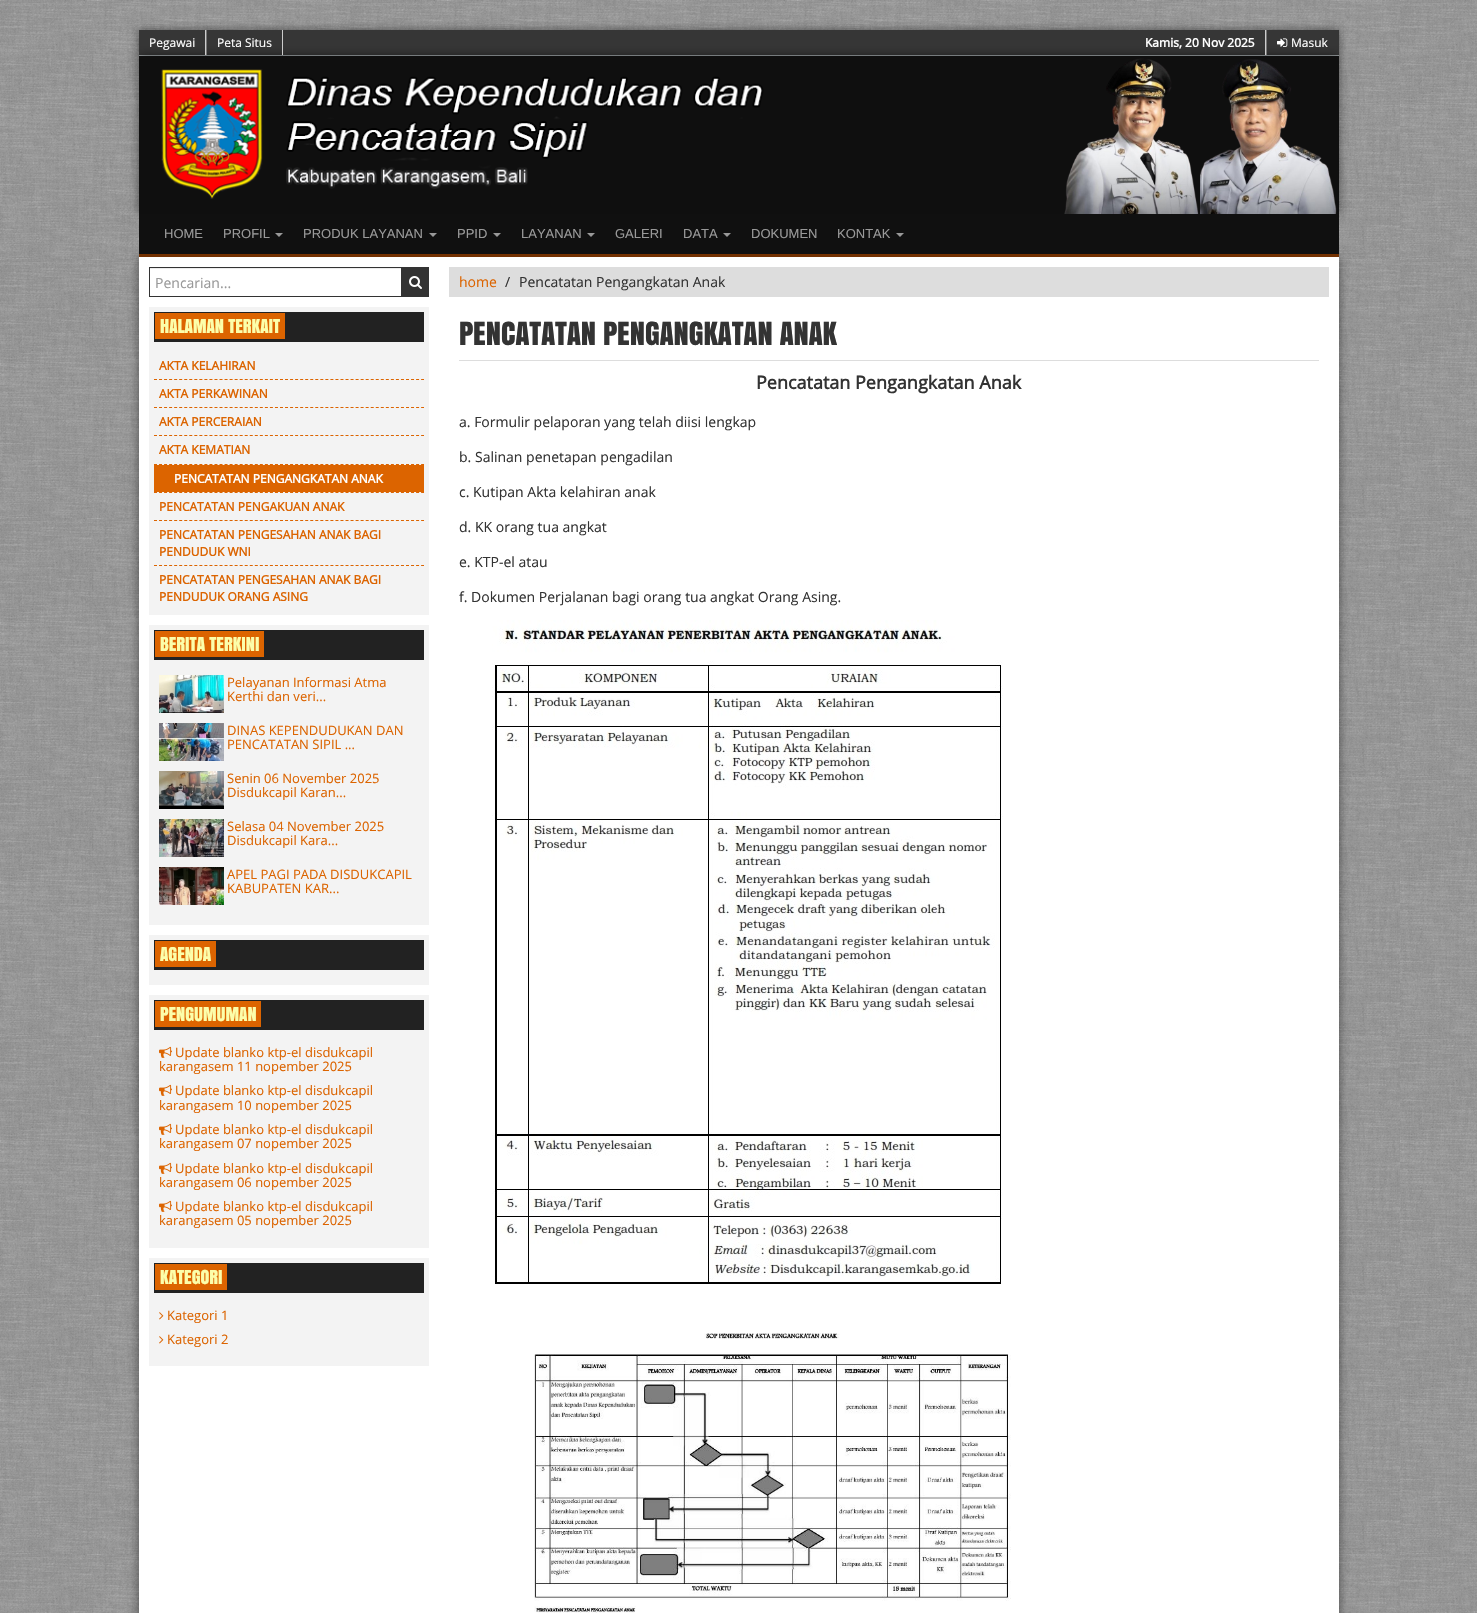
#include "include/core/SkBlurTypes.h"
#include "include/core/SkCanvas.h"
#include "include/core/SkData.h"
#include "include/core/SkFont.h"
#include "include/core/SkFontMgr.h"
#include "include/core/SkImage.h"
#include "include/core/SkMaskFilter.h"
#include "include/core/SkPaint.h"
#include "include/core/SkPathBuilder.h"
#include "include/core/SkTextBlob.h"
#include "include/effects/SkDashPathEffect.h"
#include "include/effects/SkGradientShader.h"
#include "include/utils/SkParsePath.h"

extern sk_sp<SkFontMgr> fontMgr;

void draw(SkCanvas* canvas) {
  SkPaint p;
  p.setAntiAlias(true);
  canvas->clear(SK_ColorWHITE);
  canvas->drawImageRect(SkImages::DeferredFromEncodedData(SkData::MakeFromFileName("images/1.png")), SkRect::MakeLTRB(0, 0, 1477, 1613), SkSamplingOptions());
  p.setColor(SkColorSetARGB(128, 0, 0, 0));
  p.setMaskFilter(SkMaskFilter::MakeBlur(kNormal_SkBlurStyle, 5));
  canvas->drawRect(SkRect::MakeLTRB(139, 30, 1339, 56), p);
  p.setMaskFilter(nullptr);
  p.setColor(SkColorSetRGB(54, 54, 54));
  canvas->drawRect(SkRect::MakeLTRB(139, 30, 1339, 55), p);
  p.setColor(SkColorSetRGB(154, 160, 162));
  canvas->drawRect(SkRect::MakeLTRB(139, 55, 1339, 56), p);
  p.setColor(SkColorSetARGB(128, 0, 0, 0));
  p.setMaskFilter(SkMaskFilter::MakeBlur(kNormal_SkBlurStyle, 5));
  canvas->drawRect(SkRect::MakeLTRB(139, 56, 1339, 214), p);
  p.setMaskFilter(nullptr);
  p.setColor(SkColorSetRGB(204, 204, 204));
  canvas->drawRect(SkRect::MakeLTRB(205, 30, 206, 55), p);
  canvas->drawRect(SkRect::MakeLTRB(282, 30, 283, 55), p);
  p.setColor(SkColorSetRGB(119, 119, 119));
  canvas->drawRect(SkRect::MakeLTRB(206, 30, 207, 55), p);
  p.setColor(SkColorSetRGB(204, 204, 204));
  canvas->drawRect(SkRect::MakeLTRB(1265, 30, 1266, 55), p);
  p.setColor(SkColorSetRGB(119, 119, 119));
  canvas->drawRect(SkRect::MakeLTRB(1266, 30, 1267, 55), p);
  canvas->drawImageRect(SkImages::DeferredFromEncodedData(SkData::MakeFromFileName("images/2.png")), SkRect::MakeLTRB(1277, 38, 1288, 47), SkSamplingOptions());
  p.setColor(SkColorSetRGB(15, 15, 15));
  canvas->drawRect(SkRect::MakeLTRB(139, 56, 1339, 214), p);
  canvas->drawImageRect(SkImages::DeferredFromEncodedData(SkData::MakeFromFileName("images/3.png")), SkRect::MakeLTRB(161, 69, 764, 199), SkSamplingOptions());
  canvas->drawImageRect(SkImages::DeferredFromEncodedData(SkData::MakeFromFileName("images/4.png")), SkRect::MakeLTRB(1064, 58, 1199, 214), SkSamplingOptions());
  canvas->drawImageRect(SkImages::DeferredFromEncodedData(SkData::MakeFromFileName("images/5.png")), SkRect::MakeLTRB(1200, 59, 1337, 214), SkSamplingOptions());
  p.setColor(SkColorSetARGB(128, 0, 0, 0));
  p.setMaskFilter(SkMaskFilter::MakeBlur(kNormal_SkBlurStyle, 5));
  canvas->drawRect(SkRect::MakeLTRB(139, 257, 1339, 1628), p);
  p.setMaskFilter(nullptr);
  p.setColor(SkColorSetRGB(16, 16, 16));
  canvas->drawRect(SkRect::MakeLTRB(139, 214, 1339, 254), p);
  p.setColor(SkColorSetRGB(115, 49, 1));
  canvas->drawRect(SkRect::MakeLTRB(139, 254, 1339, 257), p);
  p.setColor(SkColorSetRGB(153, 153, 153));
  canvas->drawPath(SkPathBuilder().moveTo(275, 233).lineTo(283, 233).lineTo(279, 237).close().detach(), p);
  canvas->drawPath(SkPathBuilder().moveTo(429, 233).lineTo(437, 233).lineTo(433, 237).close().detach(), p);
  canvas->drawPath(SkPathBuilder().moveTo(493, 233).lineTo(501, 233).lineTo(497, 237).close().detach(), p);
  canvas->drawPath(SkPathBuilder().moveTo(587, 233).lineTo(595, 233).lineTo(591, 237).close().detach(), p);
  canvas->drawPath(SkPathBuilder().moveTo(723, 233).lineTo(731, 233).lineTo(727, 237).close().detach(), p);
  canvas->drawPath(SkPathBuilder().moveTo(896, 233).lineTo(904, 233).lineTo(900, 237).close().detach(), p);
  p.setColor(SK_ColorWHITE);
  canvas->drawRect(SkRect::MakeLTRB(139, 257, 1339, 1613), p);
  p.setColor(SkColorSetRGB(236, 236, 236));
  canvas->drawRect(SkRect::MakeLTRB(150, 268, 401, 269), p);
  p.setStyle(SkPaint::kStroke_Style);
  p.setStrokeWidth(1);
  p.setColor(SkColorSetRGB(51, 51, 51));
  canvas->drawRect(SkRect::MakeLTRB(149.5f, 267.5f, 401.5f, 296.5f), p);
  p.setStyle(SkPaint::kFill_Style);
  canvas->drawRect(SkRect::MakeLTRB(402, 267, 429, 297), p);
  canvas->drawImageRect(SkImages::DeferredFromEncodedData(SkData::MakeFromFileName("images/6.png")), SkRect::MakeLTRB(409, 276, 422, 289), SkSamplingOptions());
  p.setColor(SkColorSetRGB(243, 243, 243));
  canvas->drawRect(SkRect::MakeLTRB(149, 307, 429, 615), p);
  p.setColor(SkColorSetRGB(34, 34, 34));
  canvas->drawRect(SkRect::MakeLTRB(154, 312, 424, 342), p);
  p.setColor(SkColorSetRGB(220, 100, 0));
  canvas->drawRect(SkRect::MakeLTRB(155, 313, 285, 339), p);
  p.setStyle(SkPaint::kStroke_Style);
  p.setPathEffect(SkDashPathEffect::Make({{3, 2.04f}}, 0));
  canvas->drawPath(SkPathBuilder().moveTo(154, 379.5f).lineTo(424, 379.5f).detach(), p);
  p.setPathEffect(nullptr);
  p.setPathEffect(SkDashPathEffect::Make({{3, 2.04f}}, 0));
  canvas->drawPath(SkPathBuilder().moveTo(154, 407.5f).lineTo(424, 407.5f).detach(), p);
  p.setPathEffect(nullptr);
  p.setPathEffect(SkDashPathEffect::Make({{3, 2.04f}}, 0));
  canvas->drawPath(SkPathBuilder().moveTo(154, 435.5f).lineTo(424, 435.5f).detach(), p);
  p.setPathEffect(nullptr);
  p.setPathEffect(SkDashPathEffect::Make({{3, 2.04f}}, 0));
  canvas->drawPath(SkPathBuilder().moveTo(154, 464.5f).lineTo(424, 464.5f).detach(), p);
  p.setPathEffect(nullptr);
  p.setStyle(SkPaint::kFill_Style);
  canvas->drawRect(SkRect::MakeLTRB(154, 465, 424, 492), p);
  p.setStyle(SkPaint::kStroke_Style);
  p.setPathEffect(SkDashPathEffect::Make({{3, 2.04f}}, 0));
  canvas->drawPath(SkPathBuilder().moveTo(154, 492.5f).lineTo(424, 492.5f).detach(), p);
  p.setPathEffect(nullptr);
  p.setPathEffect(SkDashPathEffect::Make({{3, 2.04f}}, 0));
  canvas->drawPath(SkPathBuilder().moveTo(154, 520.5f).lineTo(424, 520.5f).detach(), p);
  p.setPathEffect(nullptr);
  p.setPathEffect(SkDashPathEffect::Make({{3, 2.04f}}, 0));
  canvas->drawPath(SkPathBuilder().moveTo(154, 565.5f).lineTo(424, 565.5f).detach(), p);
  p.setPathEffect(nullptr);
  p.setStyle(SkPaint::kFill_Style);
  p.setColor(SkColorSetRGB(243, 243, 243));
  canvas->drawRect(SkRect::MakeLTRB(149, 625, 429, 925), p);
  p.setColor(SkColorSetRGB(34, 34, 34));
  canvas->drawRect(SkRect::MakeLTRB(154, 630, 424, 660), p);
  p.setColor(SkColorSetRGB(220, 100, 0));
  canvas->drawRect(SkRect::MakeLTRB(155, 631, 264, 657), p);
  canvas->drawImageRect(SkImages::DeferredFromEncodedData(SkData::MakeFromFileName("images/7.png")), SkRect::MakeLTRB(159, 675, 224, 713), SkSamplingOptions());
  canvas->drawImageRect(SkImages::DeferredFromEncodedData(SkData::MakeFromFileName("images/8.png")), SkRect::MakeLTRB(159, 723, 224, 761), SkSamplingOptions());
  canvas->drawImageRect(SkImages::DeferredFromEncodedData(SkData::MakeFromFileName("images/9.png")), SkRect::MakeLTRB(159, 771, 224, 809), SkSamplingOptions());
  canvas->drawImageRect(SkImages::DeferredFromEncodedData(SkData::MakeFromFileName("images/10.png")), SkRect::MakeLTRB(159, 819, 224, 857), SkSamplingOptions());
  canvas->drawImageRect(SkImages::DeferredFromEncodedData(SkData::MakeFromFileName("images/11.png")), SkRect::MakeLTRB(159, 867, 224, 905), SkSamplingOptions());
  p.setColor(SkColorSetRGB(243, 243, 243));
  canvas->drawRect(SkRect::MakeLTRB(149, 935, 429, 985), p);
  p.setColor(SkColorSetRGB(34, 34, 34));
  canvas->drawRect(SkRect::MakeLTRB(154, 940, 424, 970), p);
  p.setColor(SkColorSetRGB(220, 100, 0));
  canvas->drawRect(SkRect::MakeLTRB(155, 941, 216, 967), p);
  p.setColor(SkColorSetRGB(243, 243, 243));
  canvas->drawRect(SkRect::MakeLTRB(149, 995, 429, 1248), p);
  p.setColor(SkColorSetRGB(34, 34, 34));
  canvas->drawRect(SkRect::MakeLTRB(154, 1000, 424, 1030), p);
  p.setColor(SkColorSetRGB(220, 100, 0));
  canvas->drawRect(SkRect::MakeLTRB(155, 1001, 261, 1027), p);
  canvas->drawImageRect(SkImages::DeferredFromEncodedData(SkData::MakeFromFileName("images/12.png")), SkRect::MakeLTRB(159, 1046, 172, 1058), SkSamplingOptions());
  canvas->drawImageRect(SkImages::DeferredFromEncodedData(SkData::MakeFromFileName("images/12.png")), SkRect::MakeLTRB(159, 1084, 172, 1096), SkSamplingOptions());
  canvas->drawImageRect(SkImages::DeferredFromEncodedData(SkData::MakeFromFileName("images/12.png")), SkRect::MakeLTRB(159, 1123, 172, 1135), SkSamplingOptions());
  canvas->drawImageRect(SkImages::DeferredFromEncodedData(SkData::MakeFromFileName("images/12.png")), SkRect::MakeLTRB(159, 1162, 172, 1174), SkSamplingOptions());
  canvas->drawImageRect(SkImages::DeferredFromEncodedData(SkData::MakeFromFileName("images/12.png")), SkRect::MakeLTRB(159, 1200, 172, 1212), SkSamplingOptions());
  p.setColor(SkColorSetRGB(243, 243, 243));
  canvas->drawRect(SkRect::MakeLTRB(149, 1258, 429, 1366), p);
  p.setColor(SkColorSetRGB(34, 34, 34));
  canvas->drawRect(SkRect::MakeLTRB(154, 1263, 424, 1293), p);
  p.setColor(SkColorSetRGB(220, 100, 0));
  canvas->drawRect(SkRect::MakeLTRB(155, 1264, 227, 1290), p);
  canvas->drawImageRect(SkImages::DeferredFromEncodedData(SkData::MakeFromFileName("images/13.png")), SkRect::MakeLTRB(159, 1312, 164, 1320), SkSamplingOptions());
  canvas->drawImageRect(SkImages::DeferredFromEncodedData(SkData::MakeFromFileName("images/13.png")), SkRect::MakeLTRB(159, 1336, 164, 1344), SkSamplingOptions());
  p.setColor(SkColorSetRGB(221, 221, 221));
  canvas->drawRect(SkRect::MakeLTRB(449, 267, 1329, 297), p);
  canvas->drawRect(SkRect::MakeLTRB(459, 360, 1319, 361), p);
  canvas->drawImageRect(SkImages::DeferredFromEncodedData(SkData::MakeFromFileName("images/14.png")), SkRect::MakeLTRB(492, 620, 1003, 1284), SkSamplingOptions());
  canvas->drawImageRect(SkImages::DeferredFromEncodedData(SkData::MakeFromFileName("images/15.png")), SkRect::MakeLTRB(534, 1333, 1011, 1613), SkSamplingOptions());
  SkFont font1(fontMgr->matchFamilyStyle("Open Sans", SkFontStyle::Normal()), 12);
  font1.setSubpixel(true);
  p.setColor(SK_ColorWHITE);
  canvas->drawString("Pegawai", 149, 47, font1, p);
  canvas->drawString("Peta Situs", 217, 47, font1, p);
  SkFont font2(fontMgr->matchFamilyStyle("Open Sans", SkFontStyle::Bold()), 12);
  font2.setSubpixel(true);
  canvas->drawString("Kamis, 20 Nov 2025", 1145, 47, font2, p);
  canvas->drawString("Masuk", 1291, 47, font1, p);
  SkFont font3(fontMgr->matchFamilyStyle("Liberation Sans", SkFontStyle::Normal()), 13);
  font3.setSubpixel(true);
  p.setColor(SkColorSetRGB(153, 153, 153));
  canvas->drawString("HOME", 164, 238, font3, p);
  canvas->drawString("PROFIL", 223, 238, font3, p);
  canvas->drawString("PRODUK LAYANAN", 303, 238, font3, p);
  canvas->drawString("PPID", 457, 238, font3, p);
  canvas->drawString("LAYANAN", 521, 238, font3, p);
  canvas->drawString("GALERI", 615, 238, font3, p);
  canvas->drawString("DATA", 683, 238, font3, p);
  canvas->drawString("DOKUMEN", 751, 238, font3, p);
  canvas->drawString("KONTAK", 837, 238, font3, p);
  SkFont font4(fontMgr->matchFamilyStyle("Open Sans", SkFontStyle::Normal()), 14);
  font4.setSubpixel(true);
  canvas->drawString("Pencarian...", 155, 288, font4, p);
  SkFont font5(fontMgr->matchFamilyStyle("Anton", SkFontStyle::Normal()), 18);
  font5.setSubpixel(true);
  p.setColor(SkColorSetRGB(252, 254, 170));
  canvas->drawString("HALAMAN TERKAIT", 160, 333, font5, p);
  p.setColor(SkColorSetRGB(220, 100, 0));
  canvas->drawString("AKTA KELAHIRAN", 159, 370, font2, p);
  canvas->drawString("AKTA PERKAWINAN", 159, 398, font2, p);
  canvas->drawString("AKTA PERCERAIAN", 159, 426, font2, p);
  canvas->drawString("AKTA KEMATIAN", 159, 454, font2, p);
  p.setColor(SK_ColorWHITE);
  canvas->drawString("PENCATATAN PENGANGKATAN ANAK", 174, 483, font2, p);
  p.setColor(SkColorSetRGB(220, 100, 0));
  canvas->drawString("PENCATATAN PENGAKUAN ANAK", 159, 511, font2, p);
  canvas->drawString("PENCATATAN PENGESAHAN ANAK BAGI", 159, 539, font2, p);
  canvas->drawString("PENDUDUK WNI", 159, 556, font2, p);
  canvas->drawString("PENCATATAN PENGESAHAN ANAK BAGI", 159, 584, font2, p);
  canvas->drawString("PENDUDUK ORANG ASING", 159, 601, font2, p);
  p.setColor(SkColorSetRGB(252, 254, 170));
  canvas->drawString("BERITA TERKINI", 160, 651, font5, p);
  SkFont font6(fontMgr->matchFamilyStyle("Open Sans", SkFontStyle::Normal()), 13);
  font6.setSubpixel(true);
  p.setColor(SkColorSetRGB(220, 100, 0));
  canvas->drawString("Pelayanan Informasi Atma", 227, 687, font6, p);
  canvas->drawString("Kerthi dan veri...", 227, 701, font6, p);
  canvas->drawString("DINAS KEPENDUDUKAN DAN", 227, 735, font6, p);
  canvas->drawString("PENCATATAN SIPIL ...", 227, 749, font6, p);
  canvas->drawString("Senin 06 November 2025", 227, 783, font6, p);
  canvas->drawString("Disdukcapil Karan...", 227, 797, font6, p);
  canvas->drawString("Selasa 04 November 2025", 227, 831, font6, p);
  canvas->drawString("Disdukcapil Kara...", 227, 845, font6, p);
  canvas->drawString("APEL PAGI PADA DISDUKCAPIL", 227, 879, font6, p);
  canvas->drawString("KABUPATEN KAR...", 227, 893, font6, p);
  p.setColor(SkColorSetRGB(252, 254, 170));
  canvas->drawString("AGENDA", 160, 961, font5, p);
  canvas->drawString("PENGUMUMAN", 160, 1021, font5, p);
  p.setColor(SkColorSetRGB(220, 100, 0));
  canvas->drawString("Update blanko ktp-el disdukcapil", 175, 1057, font6, p);
  canvas->drawString("karangasem 11 nopember 2025", 159, 1071, font6, p);
  canvas->drawString("Update blanko ktp-el disdukcapil", 175, 1095, font6, p);
  canvas->drawString("karangasem 10 nopember 2025", 159, 1110, font6, p);
  canvas->drawString("Update blanko ktp-el disdukcapil", 175, 1134, font6, p);
  canvas->drawString("karangasem 07 nopember 2025", 159, 1148, font6, p);
  canvas->drawString("Update blanko ktp-el disdukcapil", 175, 1173, font6, p);
  canvas->drawString("karangasem 06 nopember 2025", 159, 1187, font6, p);
  canvas->drawString("Update blanko ktp-el disdukcapil", 175, 1211, font6, p);
  canvas->drawString("karangasem 05 nopember 2025", 159, 1225, font6, p);
  p.setColor(SkColorSetRGB(252, 254, 170));
  canvas->drawString("KATEGORI", 160, 1284, font5, p);
  p.setColor(SkColorSetRGB(220, 100, 0));
  canvas->drawString("Kategori 1", 167, 1320, font6, p);
  canvas->drawString("Kategori 2", 167, 1344, font6, p);
  canvas->drawString("home", 459, 287, font4, p);
  p.setColor(SkColorSetRGB(51, 51, 51));
  canvas->drawString("/", 505, 287, font4, p);
  canvas->drawString("Pencatatan Pengangkatan Anak", 519, 287, font4, p);
  SkFont font7(fontMgr->matchFamilyStyle("Anton", SkFontStyle::Normal()), 30);
  font7.setSubpixel(true);
  canvas->drawString("PENCATATAN PENGANGKATAN ANAK", 459, 345, font7, p);
  SkFont font8(fontMgr->matchFamilyStyle("Open Sans", SkFontStyle::Bold()), 18);
  font8.setSubpixel(true);
  canvas->drawString("Pencatatan Pengangkatan Anak", 756, 389, font8, p);
  canvas->drawString("a. Formulir pelaporan yang telah diisi lengkap", 459, 427, font4, p);
  canvas->drawString("b. Salinan penetapan pengadilan", 459, 462, font4, p);
  canvas->drawString("c. Kutipan Akta kelahiran anak", 459, 497, font4, p);
  canvas->drawString("d. KK orang tua angkat", 459, 532, font4, p);
  canvas->drawString("e. KTP-el atau", 459, 567, font4, p);
  canvas->drawString("f. Dokumen Perjalanan bagi orang tua angkat Orang Asing.", 459, 602, font4, p);
}
